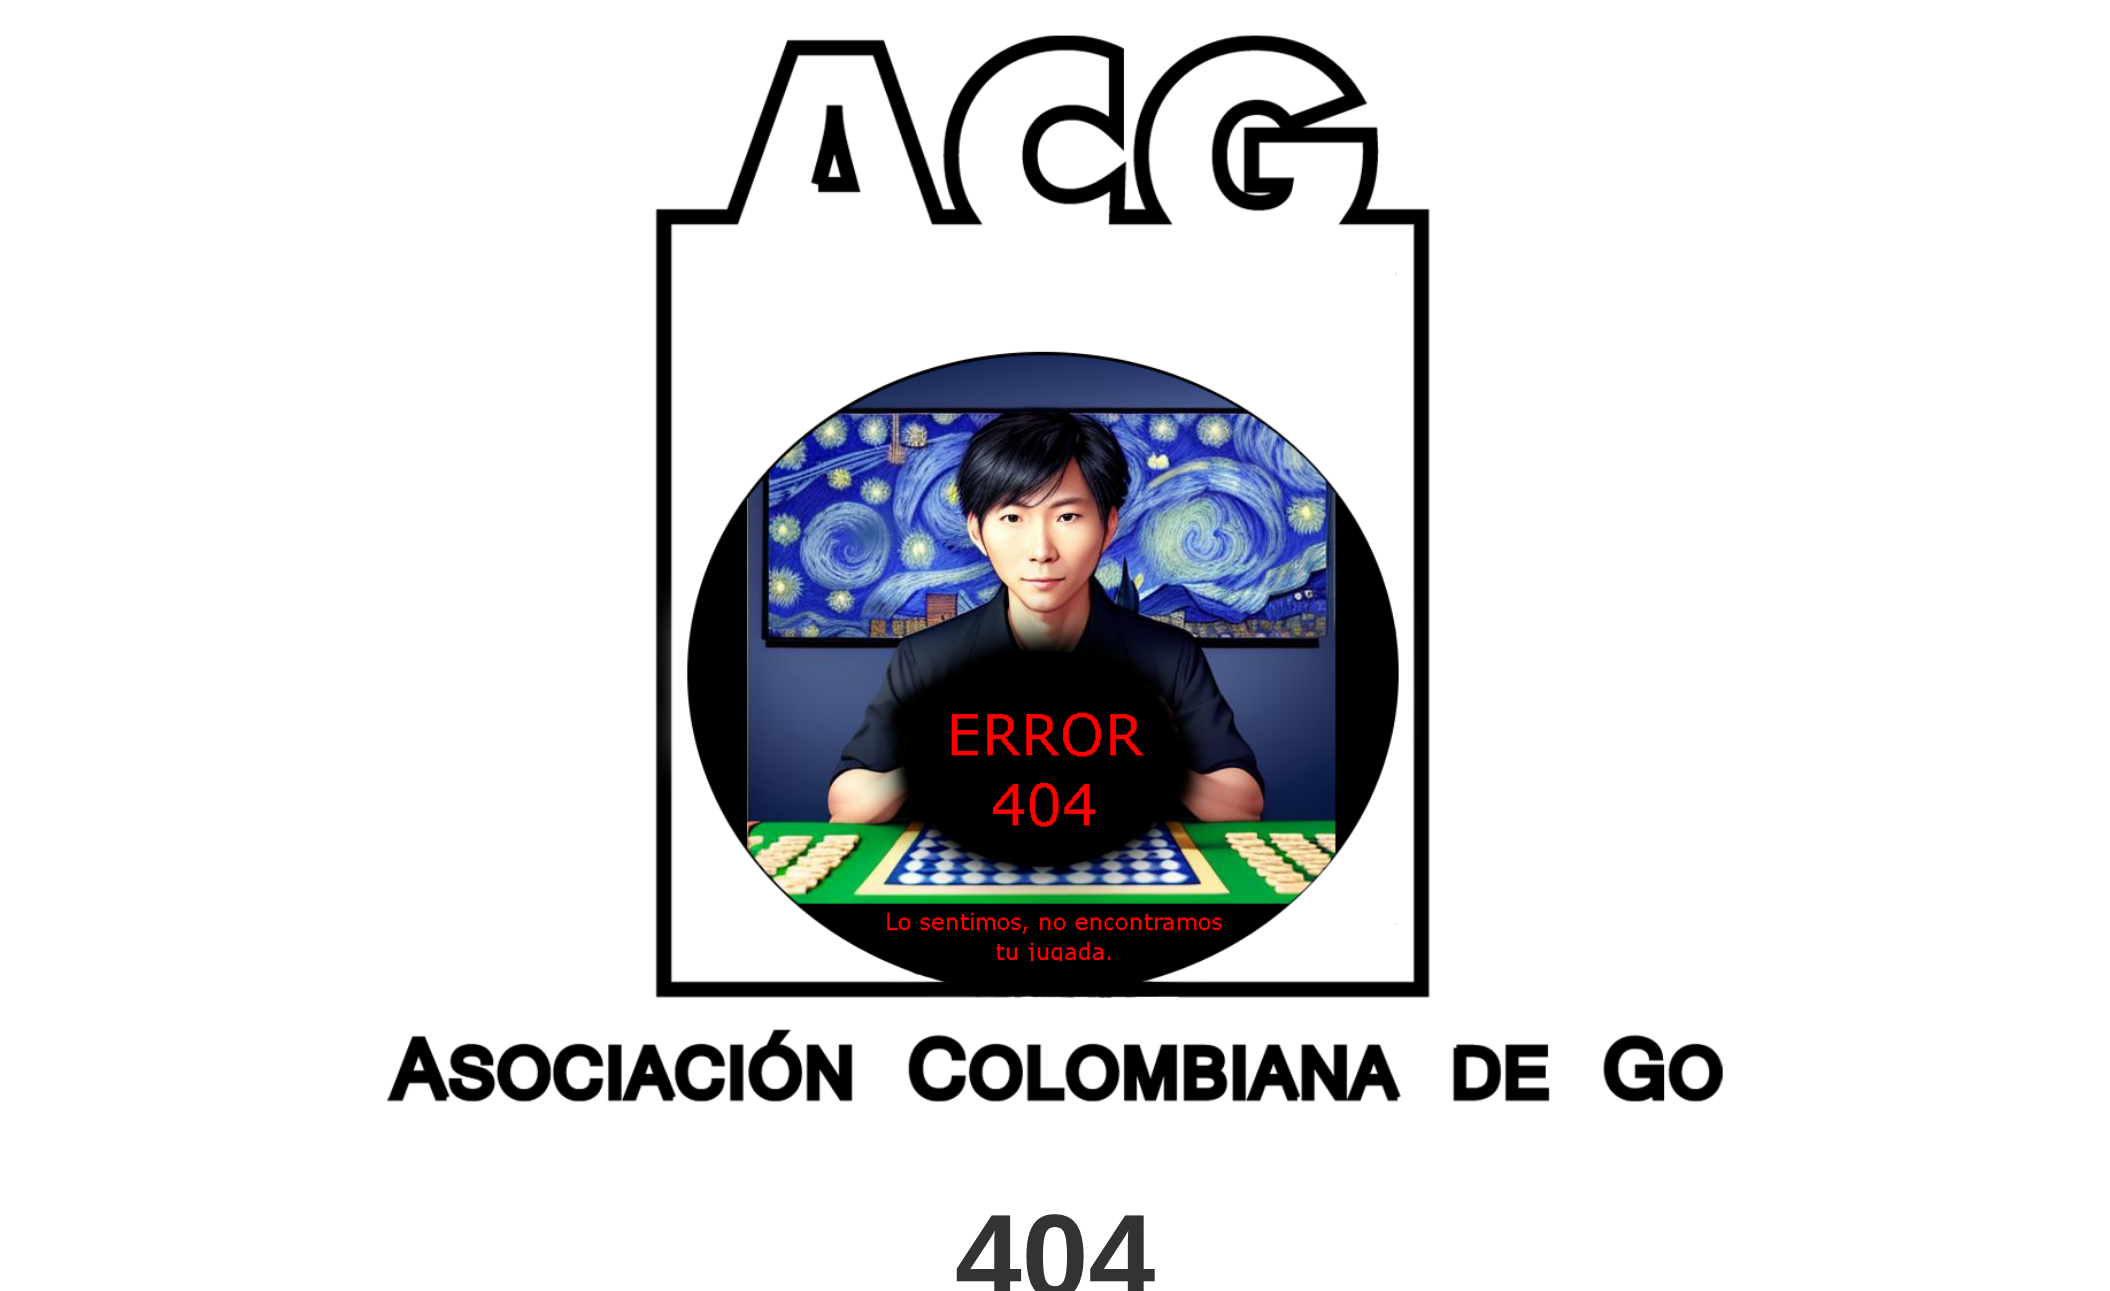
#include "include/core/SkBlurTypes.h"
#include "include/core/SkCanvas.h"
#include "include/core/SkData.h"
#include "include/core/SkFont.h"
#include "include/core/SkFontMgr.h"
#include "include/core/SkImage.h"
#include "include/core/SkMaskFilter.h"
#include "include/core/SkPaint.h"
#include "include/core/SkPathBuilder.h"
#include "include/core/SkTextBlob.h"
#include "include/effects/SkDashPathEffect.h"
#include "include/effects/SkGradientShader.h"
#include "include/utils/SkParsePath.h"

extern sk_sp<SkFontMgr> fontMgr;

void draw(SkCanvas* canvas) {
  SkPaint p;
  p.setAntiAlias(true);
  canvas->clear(SK_ColorWHITE);
  canvas->drawImageRect(SkImages::DeferredFromEncodedData(SkData::MakeFromFileName("images/1.png")), SkRect::MakeLTRB(387, 35, 1723, 1102), SkSamplingOptions());
  SkFont font1(fontMgr->matchFamilyStyle("Liberation Sans", SkFontStyle::Bold()), 120);
  font1.setSubpixel(true);
  p.setColor(SkColorSetRGB(51, 51, 51));
  canvas->drawString("404", 955, 1298, font1, p);
}
